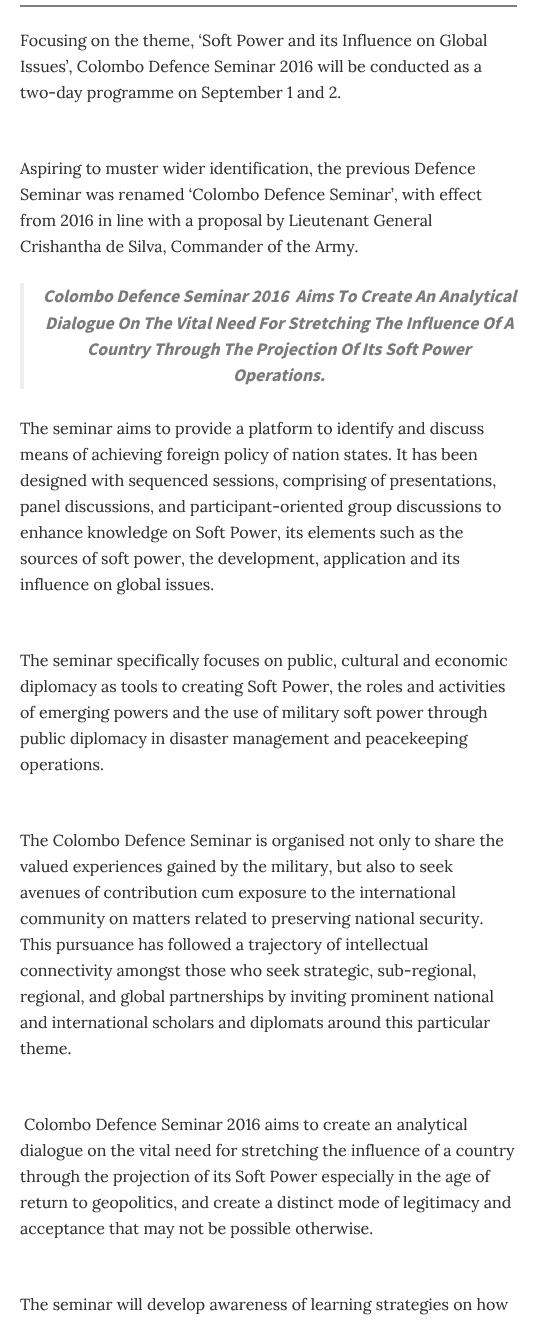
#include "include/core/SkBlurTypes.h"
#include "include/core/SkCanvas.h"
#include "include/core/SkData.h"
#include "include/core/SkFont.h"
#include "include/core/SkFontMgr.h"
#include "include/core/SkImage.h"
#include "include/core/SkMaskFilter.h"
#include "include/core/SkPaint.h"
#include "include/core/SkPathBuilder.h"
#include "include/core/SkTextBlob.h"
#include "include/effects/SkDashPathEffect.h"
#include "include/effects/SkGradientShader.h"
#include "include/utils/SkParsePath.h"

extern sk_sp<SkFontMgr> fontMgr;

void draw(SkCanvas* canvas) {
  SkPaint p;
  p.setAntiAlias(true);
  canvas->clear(SK_ColorWHITE);
  p.setColor(SkColorSetRGB(128, 128, 128));
  canvas->drawRect(SkRect::MakeLTRB(20, 5, 517, 7), p);
  p.setColor(SkColorSetRGB(238, 238, 238));
  canvas->drawRect(SkRect::MakeLTRB(20, 283, 24, 389), p);
  SkFont font1(fontMgr->matchFamilyStyle("Lora", SkFontStyle::Normal()), 16);
  font1.setSubpixel(true);
  p.setColor(SkColorSetRGB(51, 51, 51));
  canvas->drawString("Focusing on the theme, ‘Soft Power and its Influence on Global", 20, 46, font1, p);
  canvas->drawString("Issues’, Colombo Defence Seminar 2016 will be conducted as a", 20, 72, font1, p);
  canvas->drawString("two-day programme on September 1 and 2.", 20, 98, font1, p);
  canvas->drawString("Aspiring to muster wider identification, the previous Defence", 20, 174, font1, p);
  canvas->drawString("Seminar was renamed ‘Colombo Defence Seminar’, with effect", 20, 200, font1, p);
  canvas->drawString("from 2016 in line with a proposal by Lieutenant General", 20, 226, font1, p);
  canvas->drawString("Crishantha de Silva, Commander of the Army.", 20, 252, font1, p);
  SkFont font2(fontMgr->matchFamilyStyle("Source Sans Pro", SkFontStyle::BoldItalic()), 17.6f);
  font2.setSubpixel(true);
  p.setColor(SkColorSetRGB(123, 123, 123));
  canvas->drawString("Colombo Defence Seminar 2016  Aims To Create An Analytical", 43, 302, font2, p);
  canvas->drawString("Dialogue On The Vital Need For Stretching The Influence Of A", 45, 329, font2, p);
  canvas->drawString("Country Through The Projection Of Its Soft Power", 87, 355, font2, p);
  canvas->drawString("Operations.", 233, 381, font2, p);
  p.setColor(SkColorSetRGB(51, 51, 51));
  canvas->drawString("The seminar aims to provide a platform to identify and discuss", 20, 434, font1, p);
  canvas->drawString("means of achieving foreign policy of nation states. It has been", 20, 460, font1, p);
  canvas->drawString("designed with sequenced sessions, comprising of presentations,", 20, 486, font1, p);
  canvas->drawString("panel discussions, and participant-oriented group discussions to", 20, 512, font1, p);
  canvas->drawString("enhance knowledge on Soft Power, its elements such as the", 20, 538, font1, p);
  canvas->drawString("sources of soft power, the development, application and its", 20, 564, font1, p);
  canvas->drawString("influence on global issues.", 20, 590, font1, p);
  canvas->drawString("The seminar specifically focuses on public, cultural and economic", 20, 666, font1, p);
  canvas->drawString("diplomacy as tools to creating Soft Power, the roles and activities", 20, 692, font1, p);
  canvas->drawString("of emerging powers and the use of military soft power through", 20, 718, font1, p);
  canvas->drawString("public diplomacy in disaster management and peacekeeping", 20, 744, font1, p);
  canvas->drawString("operations.", 20, 770, font1, p);
  canvas->drawString("The Colombo Defence Seminar is organised not only to share the", 20, 846, font1, p);
  canvas->drawString("valued experiences gained by the military, but also to seek", 20, 872, font1, p);
  canvas->drawString("avenues of contribution cum exposure to the international", 20, 898, font1, p);
  canvas->drawString("community on matters related to preserving national security.", 20, 924, font1, p);
  canvas->drawString("This pursuance has followed a trajectory of intellectual", 20, 950, font1, p);
  canvas->drawString("connectivity amongst those who seek strategic, sub-regional,", 20, 976, font1, p);
  canvas->drawString("regional, and global partnerships by inviting prominent national", 20, 1002, font1, p);
  canvas->drawString("and international scholars and diplomats around this particular", 20, 1028, font1, p);
  canvas->drawString("theme.", 20, 1054, font1, p);
  canvas->drawString("Colombo Defence Seminar 2016 aims to create an analytical", 24, 1130, font1, p);
  canvas->drawString("dialogue on the vital need for stretching the influence of a country", 20, 1156, font1, p);
  canvas->drawString("through the projection of its Soft Power especially in the age of", 20, 1182, font1, p);
  canvas->drawString("return to geopolitics, and create a distinct mode of legitimacy and", 20, 1208, font1, p);
  canvas->drawString("acceptance that may not be possible otherwise.", 20, 1234, font1, p);
  canvas->drawString("The seminar will develop awareness of learning strategies on how", 20, 1310, font1, p);
}
